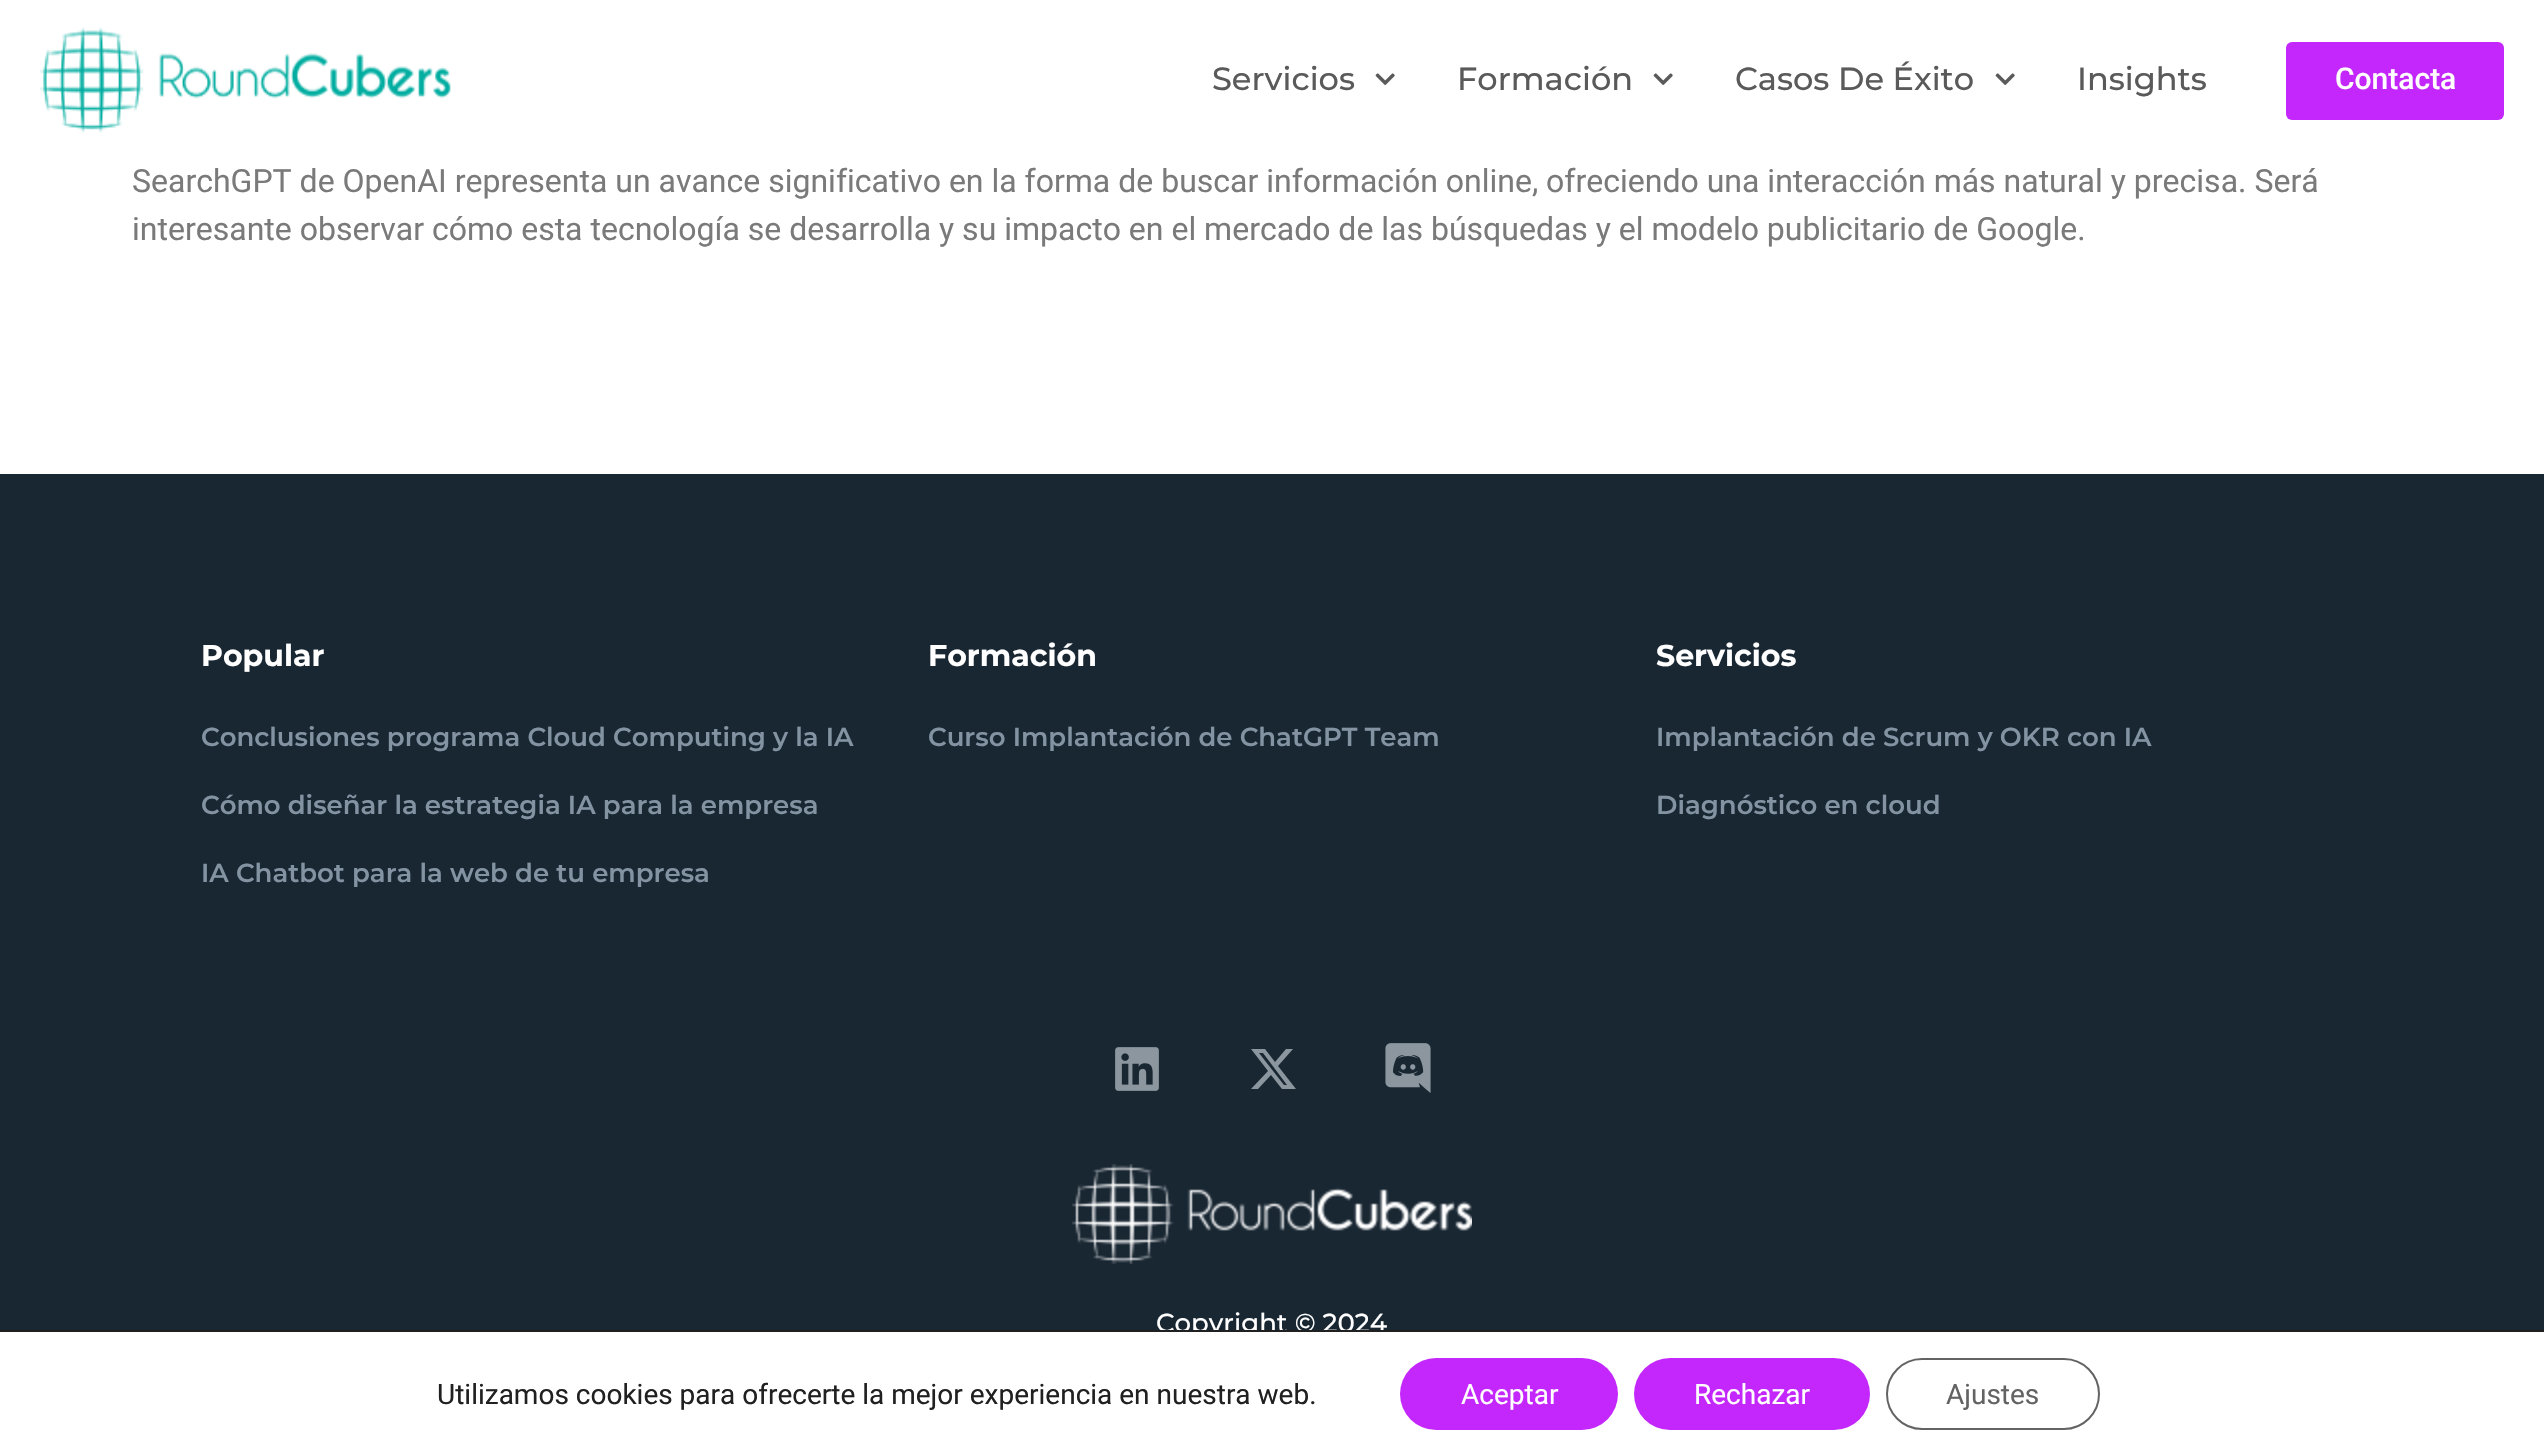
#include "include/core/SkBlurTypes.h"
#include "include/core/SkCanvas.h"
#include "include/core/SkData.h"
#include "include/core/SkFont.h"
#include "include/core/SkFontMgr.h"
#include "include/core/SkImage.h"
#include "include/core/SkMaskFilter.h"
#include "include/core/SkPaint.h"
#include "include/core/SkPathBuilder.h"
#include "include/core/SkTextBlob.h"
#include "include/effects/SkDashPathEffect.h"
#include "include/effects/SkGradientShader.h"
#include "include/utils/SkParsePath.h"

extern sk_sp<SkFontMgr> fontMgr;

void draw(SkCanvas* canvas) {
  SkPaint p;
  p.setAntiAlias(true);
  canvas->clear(SK_ColorWHITE);
  canvas->drawImageRect(SkImages::DeferredFromEncodedData(SkData::MakeFromFileName("images/1.png")), SkRect::MakeLTRB(40, 27, 451, 133), SkSamplingOptions());
  canvas->drawImageRect(SkImages::DeferredFromEncodedData(SkData::MakeFromFileName("images/2.png")), SkRect::MakeLTRB(1375, 73, 1395, 85), SkSamplingOptions());
  canvas->drawImageRect(SkImages::DeferredFromEncodedData(SkData::MakeFromFileName("images/2.png")), SkRect::MakeLTRB(1653, 73, 1673, 85), SkSamplingOptions());
  canvas->drawImageRect(SkImages::DeferredFromEncodedData(SkData::MakeFromFileName("images/2.png")), SkRect::MakeLTRB(1995, 73, 2015, 85), SkSamplingOptions());
  p.setColor(SkColorSetRGB(196, 39, 252));
  canvas->drawRoundRect(SkRect::MakeLTRB(2286, 42, 2504, 120), 6, 6, p);
  p.setColor(SkColorSetRGB(25, 39, 51));
  canvas->drawRect(SkRect::MakeLTRB(0, 474, 2544, 1330), p);
  canvas->drawImageRect(SkImages::DeferredFromEncodedData(SkData::MakeFromFileName("images/3.png")), SkRect::MakeLTRB(1115, 1047, 1159, 1091), SkSamplingOptions());
  p.setColor(SkColorSetRGB(139, 150, 159));
  canvas->drawPath(SkPathBuilder().moveTo(1286, 1049).lineTo(1293, 1049).lineTo(1278, 1066).lineTo(1296, 1089).lineTo(1282, 1089).lineTo(1271, 1075).lineTo(1258, 1089).lineTo(1251, 1089).lineTo(1268, 1071).lineTo(1251, 1049).lineTo(1265, 1049).lineTo(1275, 1062).close().moveTo(1284, 1085).lineTo(1287, 1085).lineTo(1263, 1053).lineTo(1259, 1053).close().detach(), p);
  canvas->drawImageRect(SkImages::DeferredFromEncodedData(SkData::MakeFromFileName("images/4.png")), SkRect::MakeLTRB(1385, 1043, 1431, 1093), SkSamplingOptions());
  canvas->drawImageRect(SkImages::DeferredFromEncodedData(SkData::MakeFromFileName("images/5.png")), SkRect::MakeLTRB(1072, 1164, 1472, 1264), SkSamplingOptions());
  p.setColor(SkColorSetRGB(196, 39, 252));
  canvas->drawRoundRect(SkRect::MakeLTRB(1400, 1358, 1618, 1430), 36, 36, p);
  canvas->drawRoundRect(SkRect::MakeLTRB(1634, 1358, 1870, 1430), 36, 36, p);
  p.setStyle(SkPaint::kStroke_Style);
  p.setStrokeWidth(2);
  p.setColor(SkColorSetRGB(99, 99, 99));
  canvas->drawRoundRect(SkRect::MakeLTRB(1887, 1359, 2099, 1429), 35, 35, p);
  SkFont font1(fontMgr->matchFamilyStyle("Montserrat", SkFontStyle(500, SkFontStyle::kNormal_Width, SkFontStyle::kUpright_Slant)), 32);
  font1.setSubpixel(true);
  p.setStyle(SkPaint::kFill_Style);
  p.setColor(SkColorSetRGB(90, 90, 90));
  canvas->drawString("Servicios", 1212, 90, font1, p);
  canvas->drawString("Formación", 1457, 90, font1, p);
  canvas->drawString("Casos De Éxito", 1735, 90, font1, p);
  canvas->drawString("Insights", 2077, 90, font1, p);
  SkFont font2(fontMgr->matchFamilyStyle("Roboto", SkFontStyle(500, SkFontStyle::kNormal_Width, SkFontStyle::kUpright_Slant)), 30);
  font2.setSubpixel(true);
  p.setColor(SK_ColorWHITE);
  canvas->drawString("Contacta", 2335, 89, font2, p);
  SkFont font3(fontMgr->matchFamilyStyle("Roboto", SkFontStyle::Normal()), 32);
  font3.setSubpixel(true);
  p.setColor(SkColorSetRGB(122, 122, 122));
  canvas->drawString("SearchGPT de OpenAI representa un avance significativo en la forma de buscar información online, ofreciendo una interacción más natural y precisa. Será", 132, 192, font3, p);
  canvas->drawString("interesante observar cómo esta tecnología se desarrolla y su impacto en el mercado de las búsquedas y el modelo publicitario de Google.", 132, 240, font3, p);
  SkFont font4(fontMgr->matchFamilyStyle("Montserrat", SkFontStyle::Bold()), 30);
  font4.setSubpixel(true);
  p.setColor(SK_ColorWHITE);
  canvas->drawString("Popular", 201, 666, font4, p);
  SkFont font5(fontMgr->matchFamilyStyle("Montserrat", SkFontStyle(600, SkFontStyle::kNormal_Width, SkFontStyle::kUpright_Slant)), 26);
  font5.setSubpixel(true);
  p.setColor(SkColorSetRGB(131, 147, 162));
  canvas->drawString("Conclusiones programa Cloud Computing y la IA", 201, 746, font5, p);
  canvas->drawString("Cómo diseñar la estrategia IA para la empresa", 201, 814, font5, p);
  canvas->drawString("IA Chatbot para la web de tu empresa", 201, 882, font5, p);
  p.setColor(SK_ColorWHITE);
  canvas->drawString("Formación", 928, 666, font4, p);
  p.setColor(SkColorSetRGB(131, 147, 162));
  canvas->drawString("Curso Implantación de ChatGPT Team", 928, 746, font5, p);
  p.setColor(SK_ColorWHITE);
  canvas->drawString("Servicios", 1656, 666, font4, p);
  p.setColor(SkColorSetRGB(131, 147, 162));
  canvas->drawString("Implantación de Scrum y OKR con IA", 1656, 746, font5, p);
  canvas->drawString("Diagnóstico en cloud", 1656, 814, font5, p);
  SkFont font6(fontMgr->matchFamilyStyle("Montserrat", SkFontStyle(500, SkFontStyle::kNormal_Width, SkFontStyle::kUpright_Slant)), 26);
  font6.setSubpixel(true);
  p.setColor(SK_ColorWHITE);
  canvas->drawString("Copyright © 2024", 1156, 1332, font6, p);
  p.setColor(SkColorSetRGB(32, 32, 32));
  canvas->drawRect(SkRect::MakeLTRB(0, 1330, 2544, 1332), p);
  SkFont font7(fontMgr->matchFamilyStyle("Roboto", SkFontStyle::Normal()), 28);
  font7.setSubpixel(true);
  canvas->drawString("Utilizamos cookies para ofrecerte la mejor experiencia en nuestra web.", 437, 1404, font7, p);
  p.setColor(SK_ColorWHITE);
  canvas->drawString("Aceptar", 1461, 1404, font7, p);
  canvas->drawString("Rechazar", 1694, 1404, font7, p);
  p.setColor(SkColorSetRGB(99, 99, 99));
  canvas->drawString("Ajustes", 1946, 1404, font7, p);
}
